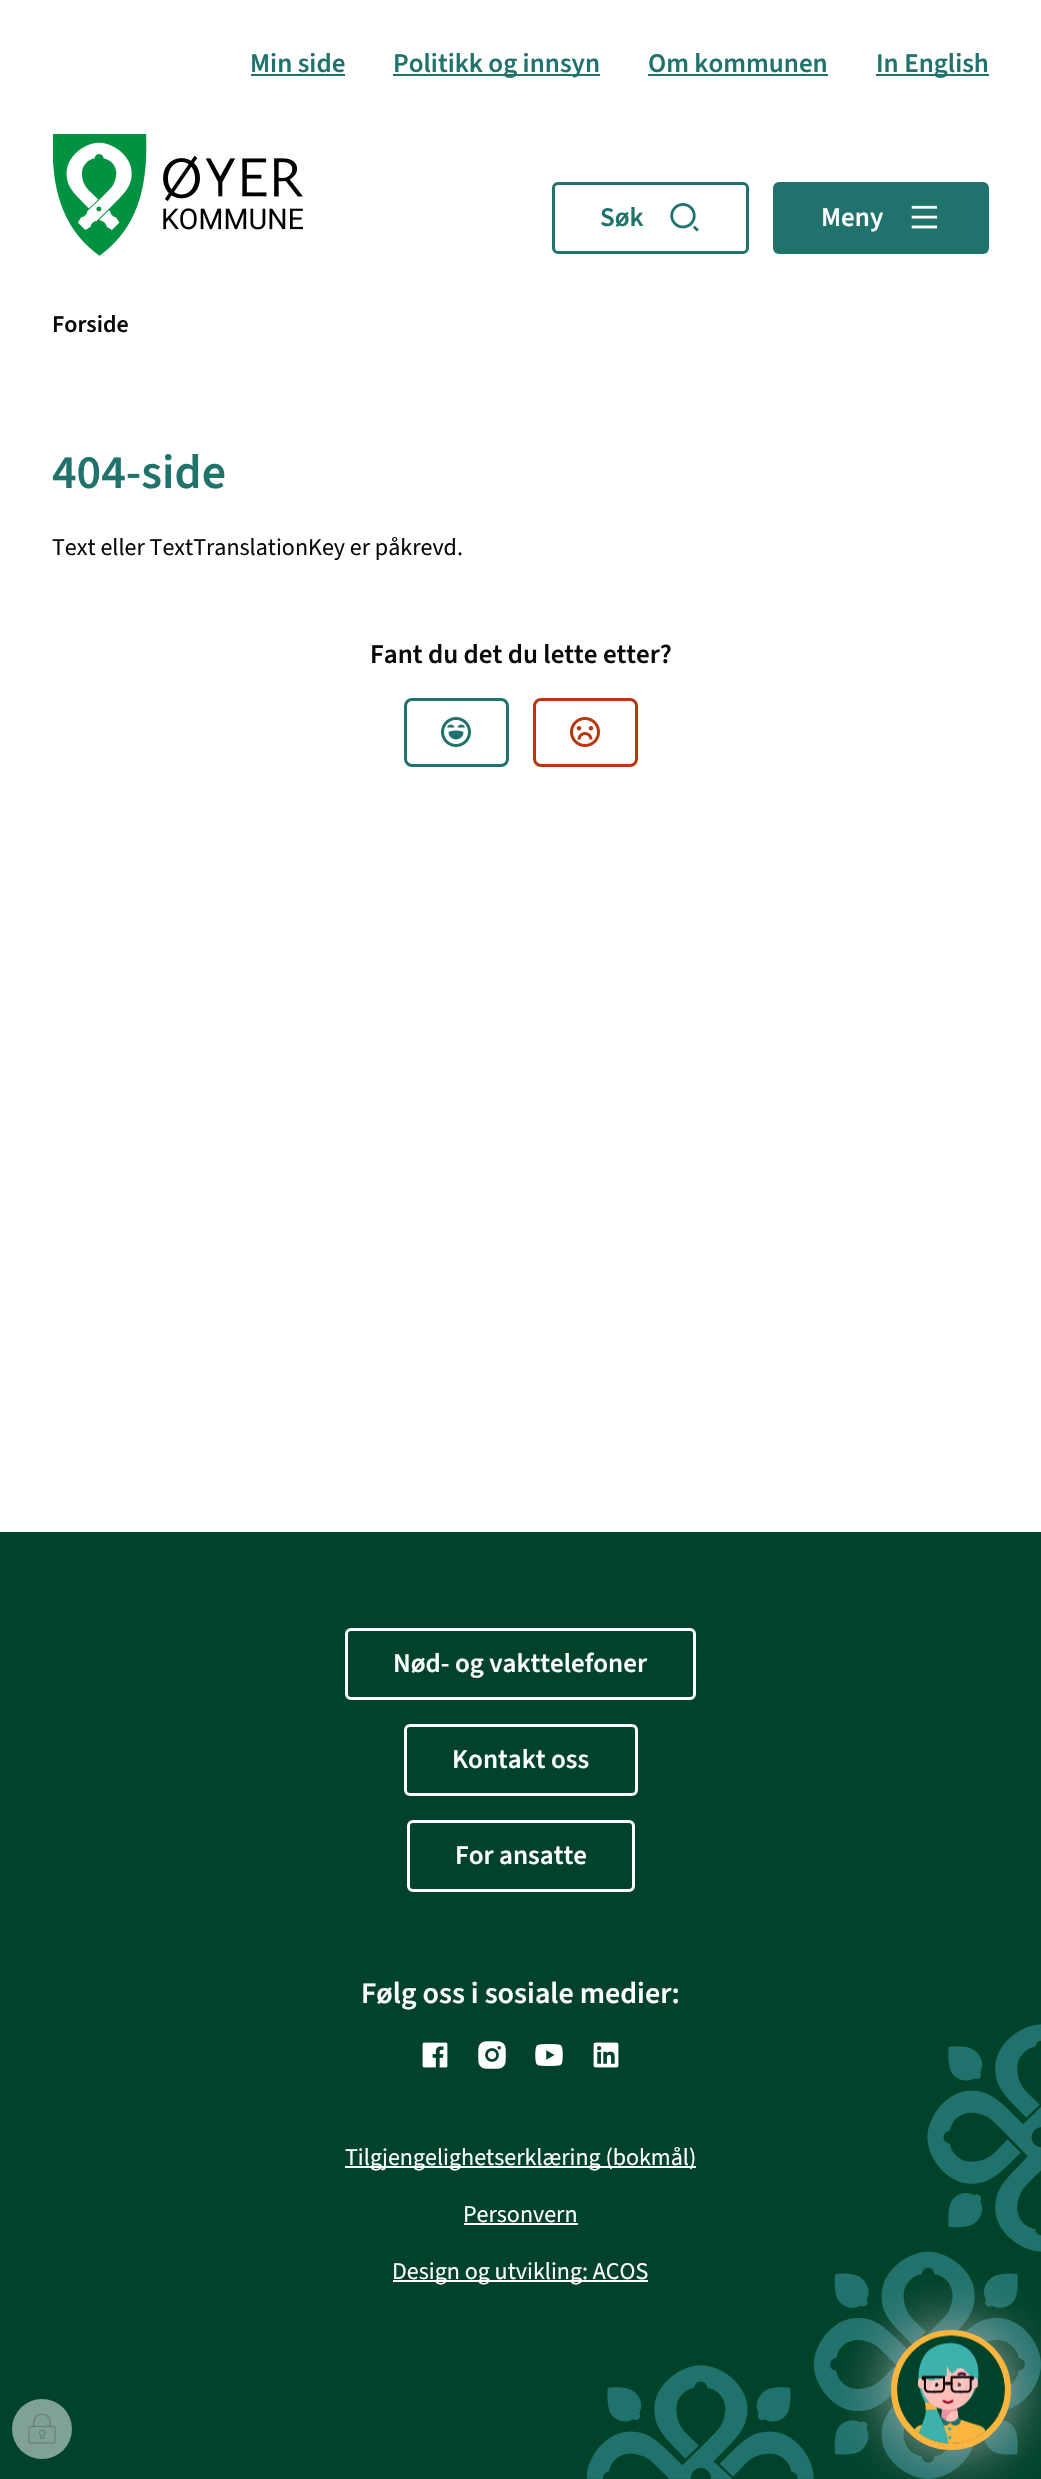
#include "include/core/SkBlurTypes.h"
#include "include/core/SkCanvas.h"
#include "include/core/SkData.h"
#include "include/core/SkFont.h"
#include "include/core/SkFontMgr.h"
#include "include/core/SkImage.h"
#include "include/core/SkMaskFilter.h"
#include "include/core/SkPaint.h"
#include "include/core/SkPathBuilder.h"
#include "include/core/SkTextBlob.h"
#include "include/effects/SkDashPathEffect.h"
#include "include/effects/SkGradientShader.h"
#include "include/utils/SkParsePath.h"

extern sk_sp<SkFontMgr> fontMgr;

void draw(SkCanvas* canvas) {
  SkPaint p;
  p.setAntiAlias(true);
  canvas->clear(SK_ColorWHITE);
  p.setColor(SkColorSetRGB(32, 114, 108));
  canvas->drawRect(SkRect::MakeLTRB(251, 74, 345, 76), p);
  canvas->drawRect(SkRect::MakeLTRB(393, 74, 600, 76), p);
  canvas->drawRect(SkRect::MakeLTRB(648, 74, 828, 76), p);
  canvas->drawRect(SkRect::MakeLTRB(876, 74, 989, 76), p);
  canvas->drawImageRect(SkImages::DeferredFromEncodedData(SkData::MakeFromFileName("images/1.png")), SkRect::MakeLTRB(53, 134, 303, 256), SkSamplingOptions());
  p.setStyle(SkPaint::kStroke_Style);
  p.setStrokeWidth(3);
  canvas->drawRoundRect(SkRect::MakeLTRB(553.5f, 183.5f, 747.5f, 252.5f), 4.5f, 4.5f, p);
  canvas->drawImageRect(SkImages::DeferredFromEncodedData(SkData::MakeFromFileName("images/2.png")), SkRect::MakeLTRB(670, 203, 699, 232), SkSamplingOptions());
  p.setStyle(SkPaint::kFill_Style);
  canvas->drawRoundRect(SkRect::MakeLTRB(773, 182, 989, 254), 6, 6, p);
  canvas->drawImageRect(SkImages::DeferredFromEncodedData(SkData::MakeFromFileName("images/3.png")), SkRect::MakeLTRB(911, 205, 938, 229), SkSamplingOptions());
  p.setStyle(SkPaint::kStroke_Style);
  canvas->drawRoundRect(SkRect::MakeLTRB(405.5f, 699.5f, 507.5f, 765.5f), 6.5f, 6.5f, p);
  canvas->drawImageRect(SkImages::DeferredFromEncodedData(SkData::MakeFromFileName("images/4.png")), SkRect::MakeLTRB(441, 717, 471, 747), SkSamplingOptions());
  p.setColor(SkColorSetRGB(187, 54, 12));
  canvas->drawRoundRect(SkRect::MakeLTRB(534.5f, 699.5f, 636.5f, 765.5f), 6.5f, 6.5f, p);
  canvas->drawImageRect(SkImages::DeferredFromEncodedData(SkData::MakeFromFileName("images/5.png")), SkRect::MakeLTRB(570, 717, 600, 747), SkSamplingOptions());
  p.setStyle(SkPaint::kFill_Style);
  p.setColor(SkColorSetRGB(0, 66, 42));
  canvas->drawRect(SkRect::MakeLTRB(0, 1532, 1041, 2479), p);
  p.setStyle(SkPaint::kStroke_Style);
  p.setColor(SK_ColorWHITE);
  canvas->drawRoundRect(SkRect::MakeLTRB(346.5f, 1629.5f, 694.5f, 1698.5f), 4.5f, 4.5f, p);
  canvas->drawRoundRect(SkRect::MakeLTRB(405.5f, 1725.5f, 636.5f, 1794.5f), 4.5f, 4.5f, p);
  canvas->drawRoundRect(SkRect::MakeLTRB(408.5f, 1821.5f, 633.5f, 1890.5f), 4.5f, 4.5f, p);
  canvas->drawImageRect(SkImages::DeferredFromEncodedData(SkData::MakeFromFileName("images/6.png")), SkRect::MakeLTRB(422, 2042, 448, 2068), SkSamplingOptions());
  canvas->drawImageRect(SkImages::DeferredFromEncodedData(SkData::MakeFromFileName("images/7.png")), SkRect::MakeLTRB(478, 2041, 506, 2069), SkSamplingOptions());
  canvas->drawImageRect(SkImages::DeferredFromEncodedData(SkData::MakeFromFileName("images/8.png")), SkRect::MakeLTRB(535, 2044, 563, 2066), SkSamplingOptions());
  canvas->drawImageRect(SkImages::DeferredFromEncodedData(SkData::MakeFromFileName("images/10.png")), SkRect::MakeLTRB(587, 2024, 1041, 2479), SkSamplingOptions());
  canvas->drawImageRect(SkImages::DeferredFromEncodedData(SkData::MakeFromFileName("images/9.png")), SkRect::MakeLTRB(593, 2042, 619, 2068), SkSamplingOptions());
  p.setStyle(SkPaint::kFill_Style);
  canvas->drawRect(SkRect::MakeLTRB(345, 2166, 696, 2168), p);
  canvas->drawRect(SkRect::MakeLTRB(464, 2223, 578, 2225), p);
  canvas->drawRect(SkRect::MakeLTRB(393, 2280, 648, 2282), p);
  p.setColor(SkColorSetRGB(128, 161, 149));
  canvas->drawCircle(42, 2429, 30, p);
  canvas->drawImageRect(SkImages::DeferredFromEncodedData(SkData::MakeFromFileName("images/11.png")), SkRect::MakeLTRB(28, 2414, 56, 2444), SkSamplingOptions());
  p.setColor(SkColorSetRGB(179, 179, 179));
  p.setMaskFilter(SkMaskFilter::MakeBlur(kNormal_SkBlurStyle, 30));
  canvas->drawRoundRect(SkRect::MakeLTRB(891, 2330, 1011, 2450), 60, 60, p);
  p.setMaskFilter(nullptr);
  p.setColor(SkColorSetRGB(249, 181, 61));
  canvas->drawCircle(951, 2390, 57, p);
  p.setStyle(SkPaint::kStroke_Style);
  p.setStrokeWidth(6);
  canvas->drawCircle(951, 2390, 57, p);
  canvas->drawImageRect(SkImages::DeferredFromEncodedData(SkData::MakeFromFileName("images/12.png")), SkRect::MakeLTRB(897, 2335, 1005, 2444), SkSamplingOptions());
  SkFont font1(fontMgr->matchFamilyStyle("Source Sans 3", SkFontStyle(600, SkFontStyle::kNormal_Width, SkFontStyle::kUpright_Slant)), 27);
  font1.setSubpixel(true);
  p.setStyle(SkPaint::kFill_Style);
  p.setColor(SkColorSetRGB(32, 114, 108));
  canvas->drawString("Min side", 250, 72, font1, p);
  canvas->drawString("Politikk og innsyn", 393, 72, font1, p);
  canvas->drawString("Om kommunen", 648, 72, font1, p);
  canvas->drawString("In English", 876, 72, font1, p);
  canvas->drawString("Søk", 600, 226, font1, p);
  p.setColor(SK_ColorWHITE);
  canvas->drawString("Meny", 821, 226, font1, p);
  SkFont font2(fontMgr->matchFamilyStyle("Source Sans 3", SkFontStyle(600, SkFontStyle::kNormal_Width, SkFontStyle::kUpright_Slant)), 24);
  font2.setSubpixel(true);
  p.setColor(SkColorSetRGB(10, 10, 10));
  canvas->drawString("Forside", 52, 332, font2, p);
  SkFont font3(fontMgr->matchFamilyStyle("Source Sans 3", SkFontStyle(600, SkFontStyle::kNormal_Width, SkFontStyle::kUpright_Slant)), 48);
  font3.setSubpixel(true);
  p.setColor(SkColorSetRGB(32, 114, 108));
  canvas->drawString("404-side", 52, 488, font3, p);
  SkFont font4(fontMgr->matchFamilyStyle("Source Sans 3", SkFontStyle::Normal()), 24);
  font4.setSubpixel(true);
  p.setColor(SkColorSetRGB(10, 10, 10));
  canvas->drawString("Text eller TextTranslationKey er påkrevd.", 52, 555, font4, p);
  canvas->drawString("Fant du det du lette etter?", 370, 663, font1, p);
  p.setColor(SK_ColorWHITE);
  canvas->drawString("Nød- og vakttelefoner", 393, 1672, font1, p);
  canvas->drawString("Kontakt oss", 452, 1768, font1, p);
  canvas->drawString("For ansatte", 455, 1864, font1, p);
  SkFont font5(fontMgr->matchFamilyStyle("Source Sans 3", SkFontStyle(600, SkFontStyle::kNormal_Width, SkFontStyle::kUpright_Slant)), 30);
  font5.setSubpixel(true);
  canvas->drawString("Følg oss i sosiale medier:", 361, 2003, font5, p);
  canvas->drawString("Tilgjengelighetserklæring (bokmål)", 345, 2165, font4, p);
  canvas->drawString("Personvern", 463, 2222, font4, p);
  canvas->drawString("Design og utvikling: ACOS", 392, 2279, font4, p);
}
